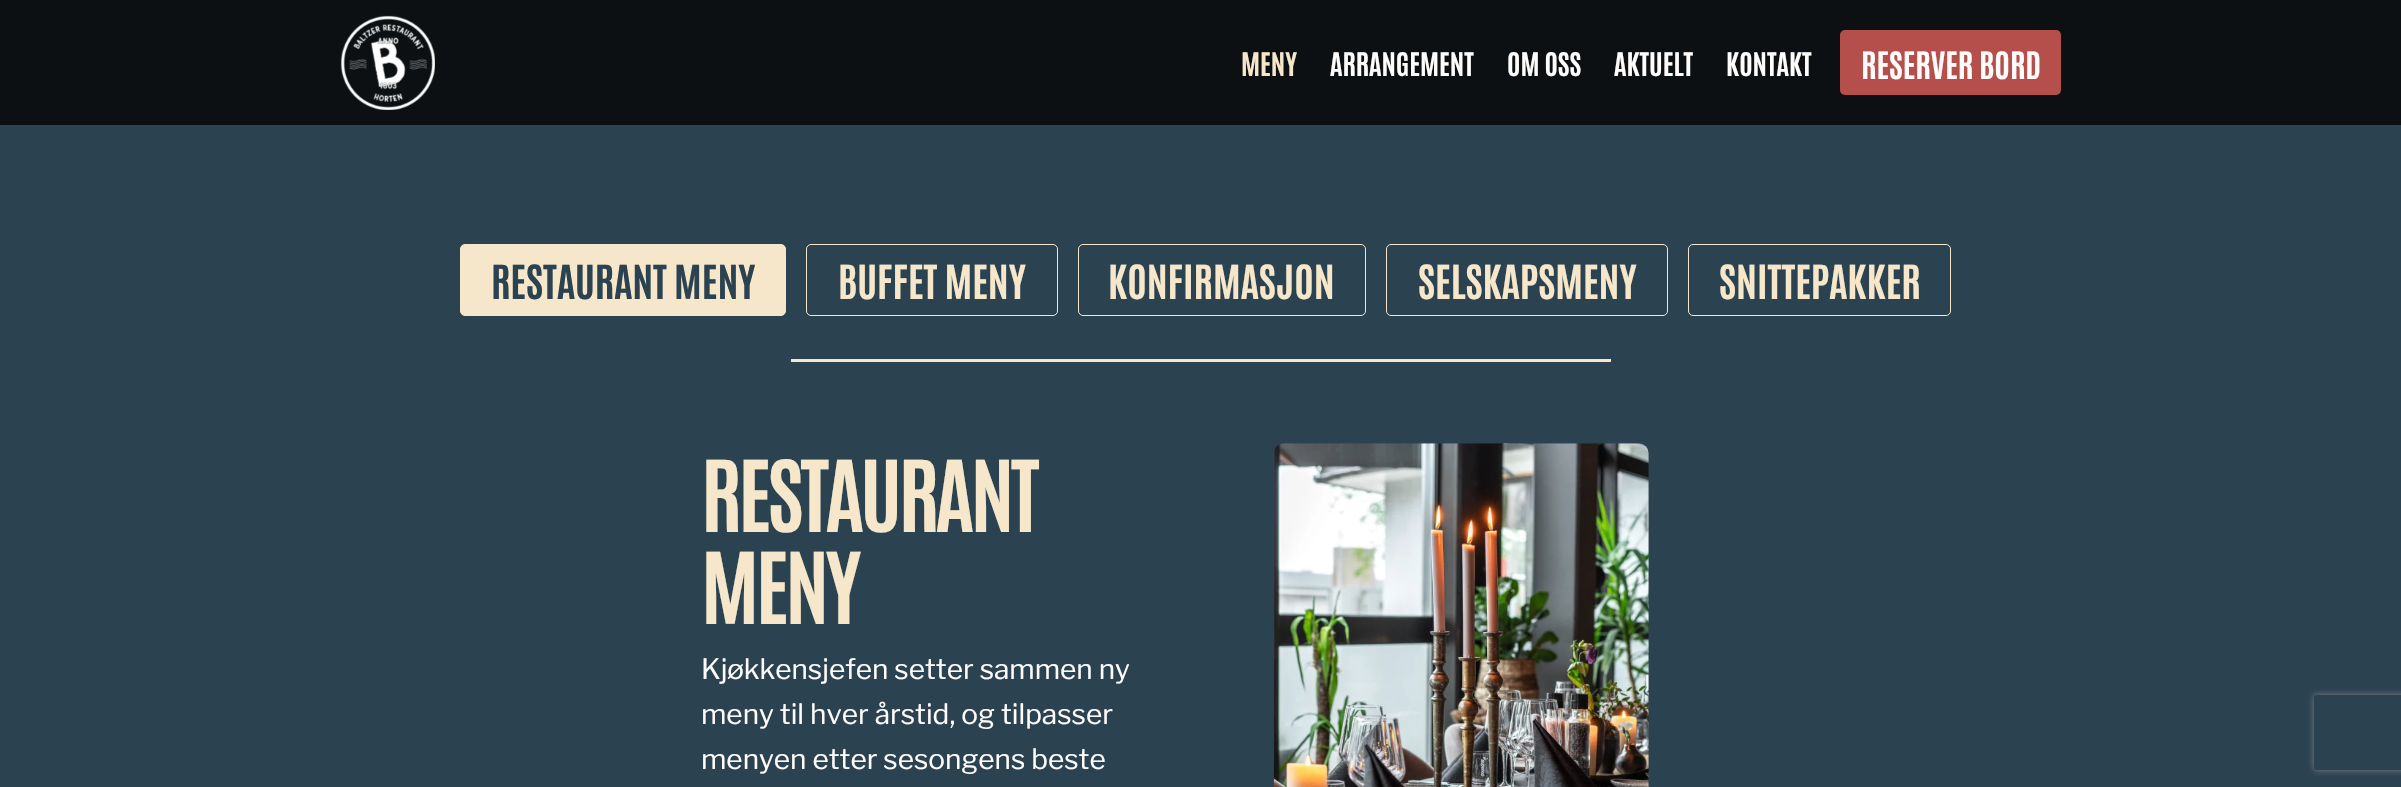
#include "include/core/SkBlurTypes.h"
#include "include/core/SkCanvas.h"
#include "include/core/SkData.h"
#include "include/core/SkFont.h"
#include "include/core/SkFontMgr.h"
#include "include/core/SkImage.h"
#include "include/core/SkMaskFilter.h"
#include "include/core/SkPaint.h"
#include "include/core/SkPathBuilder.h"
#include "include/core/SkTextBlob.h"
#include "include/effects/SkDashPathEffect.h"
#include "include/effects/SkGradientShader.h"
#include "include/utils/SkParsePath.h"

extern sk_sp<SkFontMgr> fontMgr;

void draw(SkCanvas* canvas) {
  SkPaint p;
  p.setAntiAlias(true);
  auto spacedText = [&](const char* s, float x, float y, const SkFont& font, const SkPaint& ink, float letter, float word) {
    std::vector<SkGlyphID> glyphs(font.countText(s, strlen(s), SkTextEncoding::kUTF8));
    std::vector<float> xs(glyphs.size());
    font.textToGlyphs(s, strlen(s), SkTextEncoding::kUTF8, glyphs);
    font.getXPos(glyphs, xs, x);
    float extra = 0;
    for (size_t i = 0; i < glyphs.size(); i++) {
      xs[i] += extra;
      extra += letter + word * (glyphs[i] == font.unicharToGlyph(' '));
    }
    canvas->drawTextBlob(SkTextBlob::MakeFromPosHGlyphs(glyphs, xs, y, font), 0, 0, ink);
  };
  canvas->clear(SkColorSetRGB(43, 66, 81));
  p.setColor(SkColorSetRGB(12, 16, 18));
  canvas->drawRect(SkRect::MakeLTRB(0, 0, 2401, 125), p);
  canvas->drawImageRect(SkImages::DeferredFromEncodedData(SkData::MakeFromFileName("images/1.png")), SkRect::MakeLTRB(340, 15, 435, 110), SkSamplingOptions());
  p.setColor(SkColorSetRGB(181, 79, 76));
  canvas->drawRoundRect(SkRect::MakeLTRB(1840, 30, 2061, 95), 5, 5, p);
  p.setColor(SkColorSetRGB(246, 231, 202));
  canvas->drawRoundRect(SkRect::MakeLTRB(460.5f, 244.5f, 785.5f, 315.5f), 4.5f, 4.5f, p);
  p.setStyle(SkPaint::kStroke_Style);
  p.setStrokeWidth(1);
  canvas->drawRoundRect(SkRect::MakeLTRB(460.5f, 244.5f, 785.5f, 315.5f), 4.5f, 4.5f, p);
  canvas->drawRoundRect(SkRect::MakeLTRB(806.5f, 244.5f, 1057.5f, 315.5f), 4.5f, 4.5f, p);
  canvas->drawRoundRect(SkRect::MakeLTRB(1078.5f, 244.5f, 1365.5f, 315.5f), 4.5f, 4.5f, p);
  canvas->drawRoundRect(SkRect::MakeLTRB(1386.5f, 244.5f, 1667.5f, 315.5f), 4.5f, 4.5f, p);
  canvas->drawRoundRect(SkRect::MakeLTRB(1688.5f, 244.5f, 1950.5f, 315.5f), 4.5f, 4.5f, p);
  p.setStyle(SkPaint::kFill_Style);
  canvas->drawRect(SkRect::MakeLTRB(791, 359, 1611, 362), p);
  canvas->drawImageRect(SkImages::DeferredFromEncodedData(SkData::MakeFromFileName("images/2.png")), SkRect::MakeLTRB(1273, 443, 1649, 787), SkSamplingOptions());
  canvas->save();
  canvas->clipPath(SkPathBuilder(SkPathFillType::kEvenOdd).moveTo(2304, 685).lineTo(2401, 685).lineTo(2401, 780).lineTo(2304, 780).close().moveTo(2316.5f, 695).lineTo(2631.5f, 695).cubicTo(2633, 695, 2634, 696, 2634, 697.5f).lineTo(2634, 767.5f).cubicTo(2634, 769, 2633, 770, 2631.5f, 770).lineTo(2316.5f, 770).cubicTo(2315, 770, 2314, 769, 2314, 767.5f).lineTo(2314, 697.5f).cubicTo(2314, 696, 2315, 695, 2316.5f, 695).close().detach(), true);
  p.setColor(SkColorSetRGB(128, 128, 128));
  p.setMaskFilter(SkMaskFilter::MakeBlur(kNormal_SkBlurStyle, 3));
  canvas->drawRoundRect(SkRect::MakeLTRB(2314, 695, 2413, 770), 2.5f, 2.5f, p);
  p.setMaskFilter(nullptr);
  canvas->restore();
  SkFont font1(fontMgr->matchFamilyStyle("Antonio", SkFontStyle::Bold()), 27.5f);
  font1.setSubpixel(true);
  p.setColor(SkColorSetRGB(246, 231, 202));
  canvas->drawString("MENY", 1241, 76, font1, p);
  p.setColor(SkColorSetRGB(255, 253, 251));
  canvas->drawString("ARRANGEMENT", 1330, 76, font1, p);
  canvas->drawString("OM OSS", 1507, 76, font1, p);
  canvas->drawString("AKTUELT", 1614, 76, font1, p);
  canvas->drawString("KONTAKT", 1726, 76, font1, p);
  SkFont font2(fontMgr->matchFamilyStyle("Antonio", SkFontStyle::Bold()), 32);
  font2.setSubpixel(true);
  canvas->drawString("RESERVER BORD", 1861, 79, font2, p);
  SkFont font3(fontMgr->matchFamilyStyle("Antonio", SkFontStyle::Bold()), 40);
  font3.setSubpixel(true);
  p.setColor(SkColorSetRGB(43, 66, 81));
  canvas->drawString("RESTAURANT MENY", 491, 299, font3, p);
  p.setColor(SkColorSetRGB(246, 231, 202));
  canvas->drawString("BUFFET MENY", 838, 299, font3, p);
  canvas->drawString("KONFIRMASJON", 1108, 299, font3, p);
  canvas->drawString("SELSKAPSMENY", 1418, 299, font3, p);
  canvas->drawString("SNITTEPAKKER", 1719, 299, font3, p);
  SkFont font4(fontMgr->matchFamilyStyle("Antonio", SkFontStyle::Bold()), 84);
  font4.setSubpixel(true);
  spacedText("RESTAURANT", 701, 532, font4, p, -3.4f, 0);
  spacedText("MENY", 701, 624, font4, p, -3.4f, 0);
  SkFont font5(fontMgr->matchFamilyStyle("Libre Franklin", SkFontStyle::Normal()), 28);
  font5.setSubpixel(true);
  p.setColor(SkColorSetRGB(255, 253, 251));
  canvas->drawString("Kjøkkensjefen setter sammen ny", 701, 679, font5, p);
  canvas->drawString("meny til hver årstid, og tilpasser", 701, 724, font5, p);
  canvas->drawString("menyen etter sesongens beste", 701, 769, font5, p);
}
